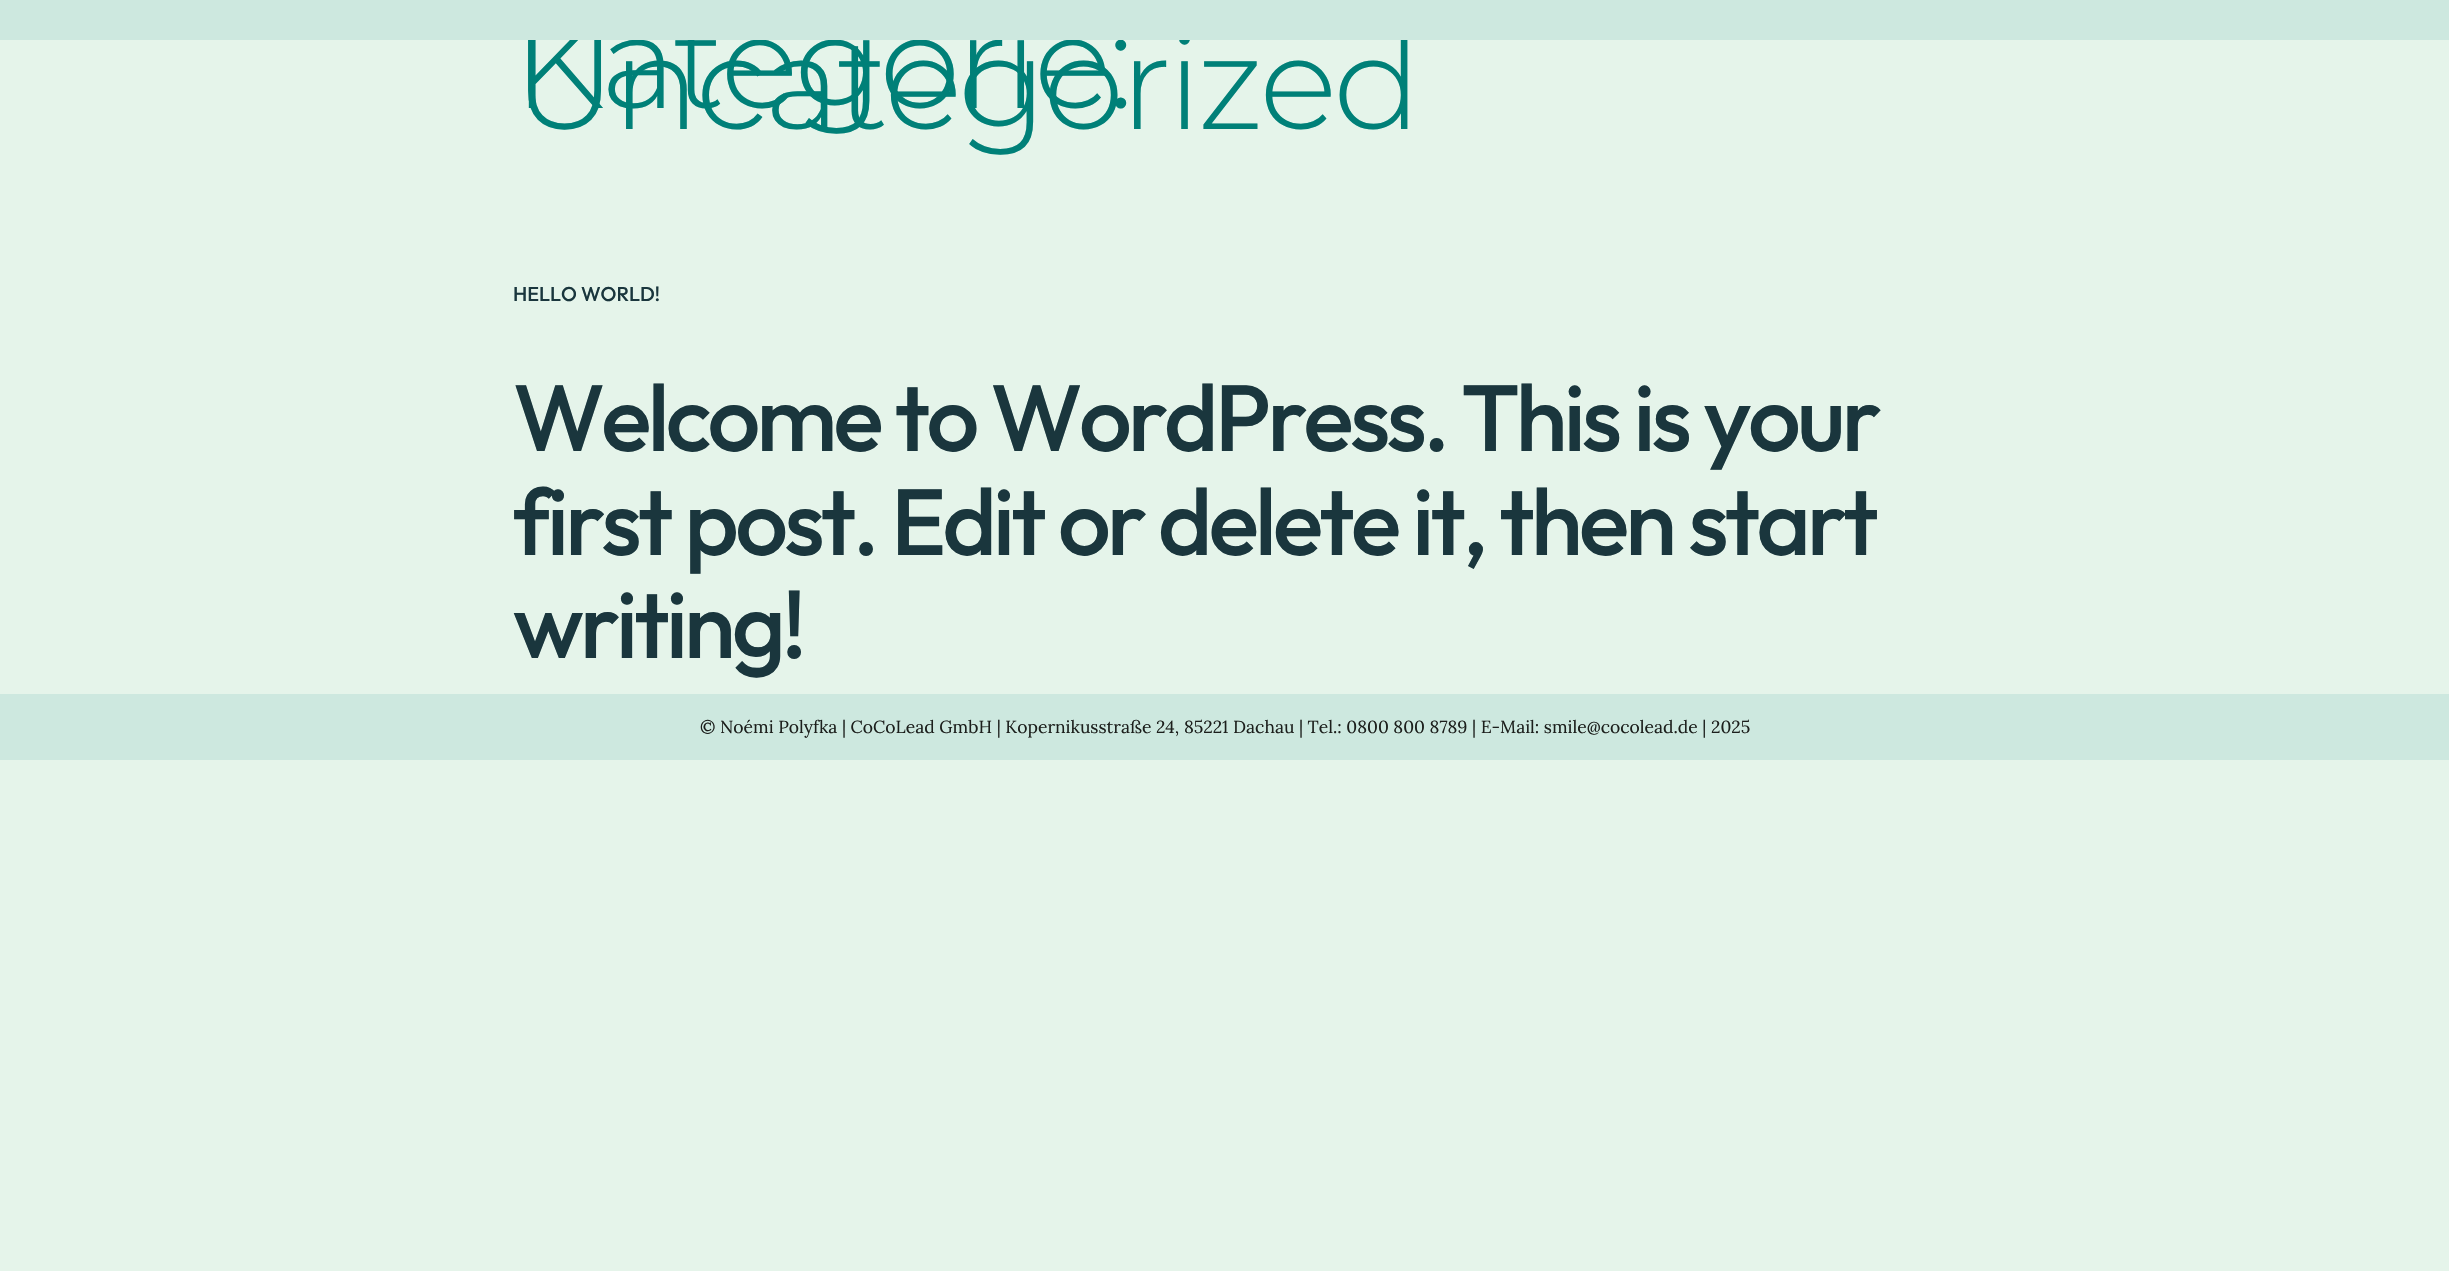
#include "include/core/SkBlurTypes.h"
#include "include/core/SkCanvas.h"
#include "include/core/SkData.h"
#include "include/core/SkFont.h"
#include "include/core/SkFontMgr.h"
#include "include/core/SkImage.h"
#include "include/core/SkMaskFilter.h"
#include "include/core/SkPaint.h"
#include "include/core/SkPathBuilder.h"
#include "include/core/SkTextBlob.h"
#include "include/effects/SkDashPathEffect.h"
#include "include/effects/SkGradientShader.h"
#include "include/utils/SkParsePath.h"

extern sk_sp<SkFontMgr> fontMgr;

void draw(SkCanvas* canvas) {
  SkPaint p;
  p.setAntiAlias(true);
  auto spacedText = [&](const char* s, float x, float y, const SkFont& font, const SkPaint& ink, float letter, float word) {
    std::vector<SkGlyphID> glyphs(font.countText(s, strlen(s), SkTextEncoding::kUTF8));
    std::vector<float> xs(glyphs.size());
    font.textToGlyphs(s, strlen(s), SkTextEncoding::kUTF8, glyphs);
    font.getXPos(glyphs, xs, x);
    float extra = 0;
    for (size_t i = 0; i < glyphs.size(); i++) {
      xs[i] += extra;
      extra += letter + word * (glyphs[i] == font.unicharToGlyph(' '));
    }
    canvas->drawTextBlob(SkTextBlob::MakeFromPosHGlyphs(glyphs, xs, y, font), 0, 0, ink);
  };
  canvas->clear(SkColorSetRGB(229, 244, 234));
  p.setColor(SkColorSetRGB(205, 232, 223));
  canvas->drawRect(SkRect::MakeLTRB(0, 694, 2449, 760), p);
  SkFont font1(fontMgr->matchFamilyStyle("Montserrat", SkFontStyle(300, SkFontStyle::kNormal_Width, SkFontStyle::kUpright_Slant)), 130);
  font1.setSubpixel(true);
  p.setColor(SkColorSetRGB(0, 128, 120));
  spacedText("Kategorie:", 513, 108, font1, p, -3.75f, 0);
  spacedText("Uncategorized", 513, 129, font1, p, -3.75f, 0);
  p.setColor(SkColorSetRGB(205, 232, 223));
  canvas->drawRect(SkRect::MakeLTRB(0, 0, 2449, 40), p);
  SkFont font2(fontMgr->matchFamilyStyle("Outfit", SkFontStyle(500, SkFontStyle::kNormal_Width, SkFontStyle::kUpright_Slant)), 20);
  font2.setSubpixel(true);
  p.setColor(SkColorSetRGB(26, 54, 61));
  canvas->drawString("HELLO WORLD!", 513, 301, font2, p);
  SkFont font3(fontMgr->matchFamilyStyle("Outfit", SkFontStyle(500, SkFontStyle::kNormal_Width, SkFontStyle::kUpright_Slant)), 93.75f);
  font3.setSubpixel(true);
  spacedText("Welcome to WordPress. This is your", 513, 451, font3, p, -3.75f, 0);
  spacedText("first post. Edit or delete it, then start", 513, 555, font3, p, -3.75f, 0);
  spacedText("writing!", 513, 658, font3, p, -3.75f, 0);
  SkFont font4(fontMgr->matchFamilyStyle("Lora", SkFontStyle::Normal()), 17.5f);
  font4.setSubpixel(true);
  p.setColor(SkColorSetRGB(28, 31, 28));
  canvas->drawString("© Noémi Polyfka | CoCoLead GmbH | Kopernikusstraße 24, 85221 Dachau | Tel.: 0800 800 8789 | E-Mail: smile@cocolead.de | 2025", 700, 733, font4, p);
}
